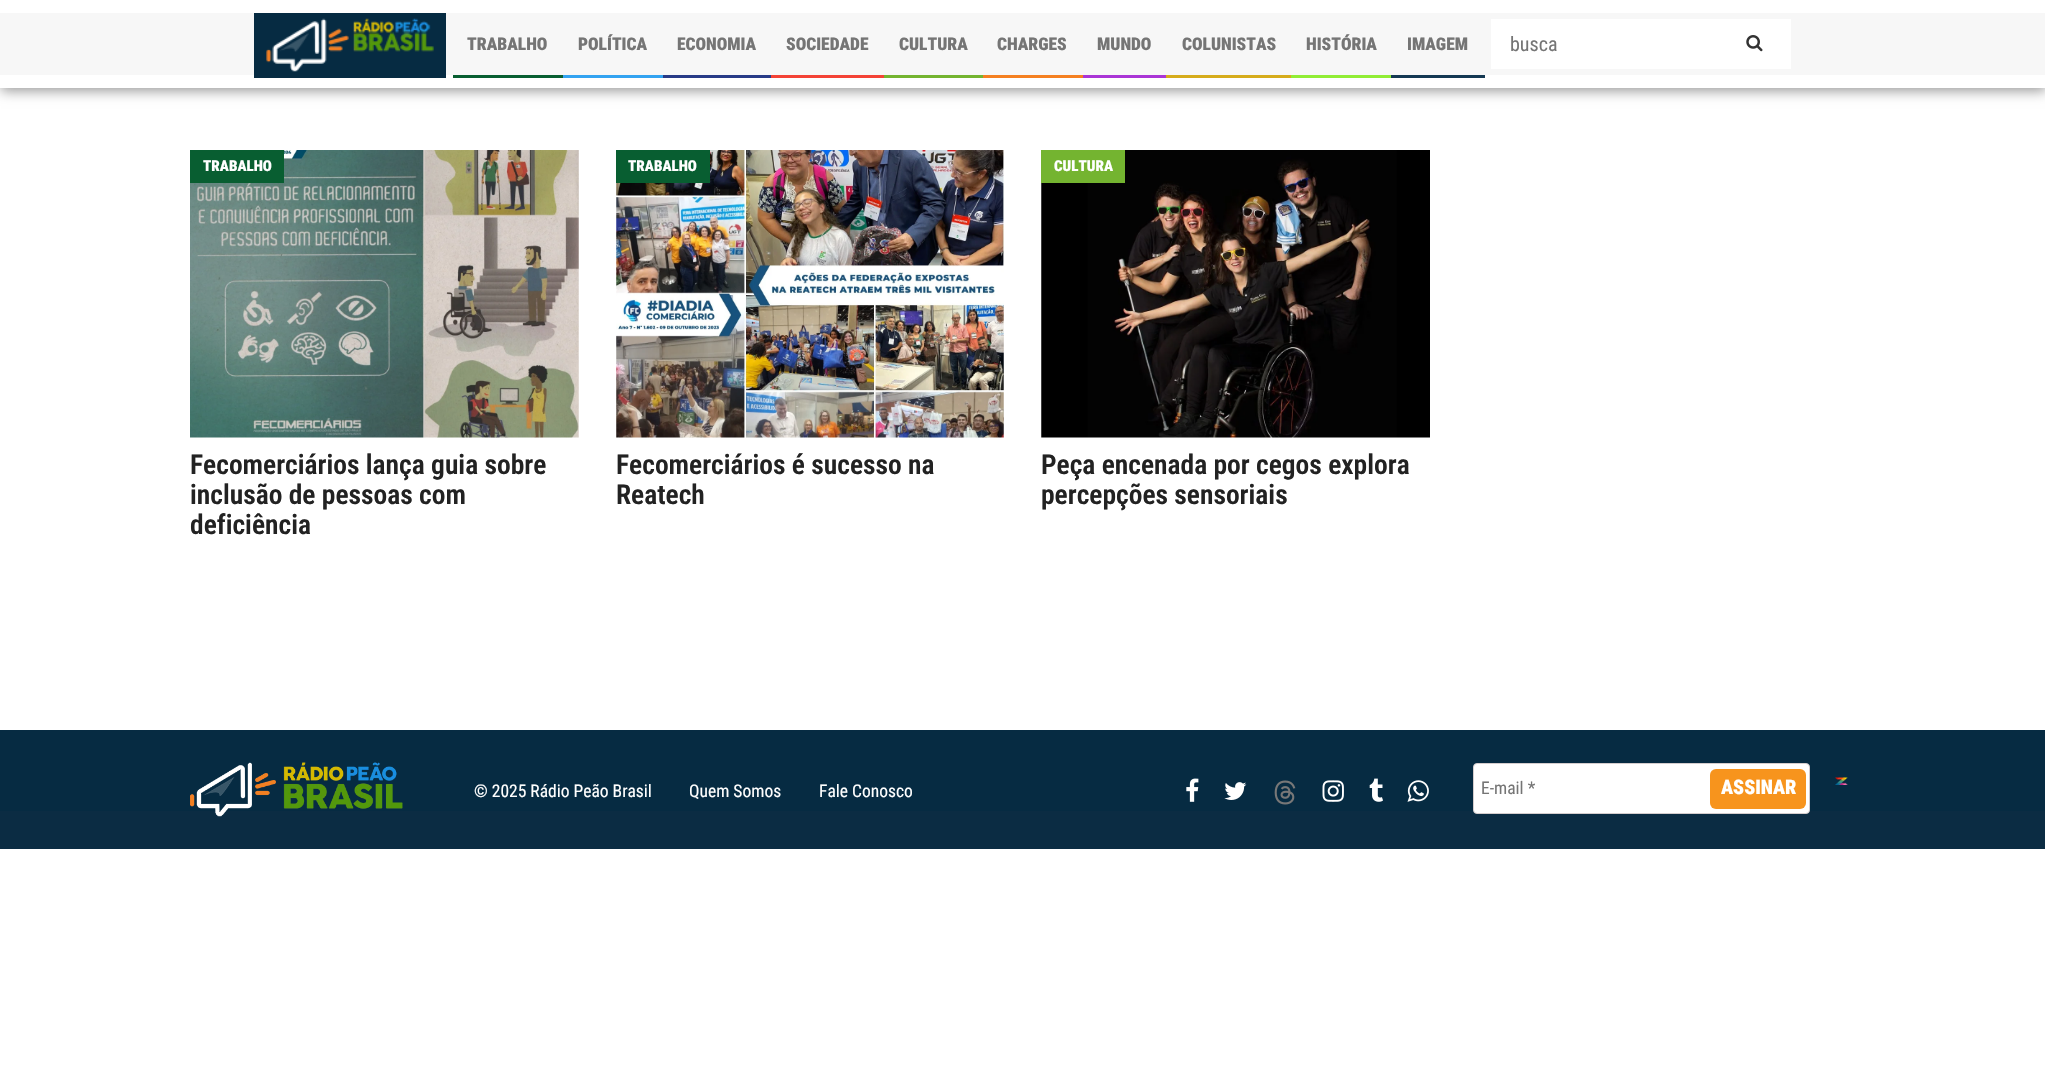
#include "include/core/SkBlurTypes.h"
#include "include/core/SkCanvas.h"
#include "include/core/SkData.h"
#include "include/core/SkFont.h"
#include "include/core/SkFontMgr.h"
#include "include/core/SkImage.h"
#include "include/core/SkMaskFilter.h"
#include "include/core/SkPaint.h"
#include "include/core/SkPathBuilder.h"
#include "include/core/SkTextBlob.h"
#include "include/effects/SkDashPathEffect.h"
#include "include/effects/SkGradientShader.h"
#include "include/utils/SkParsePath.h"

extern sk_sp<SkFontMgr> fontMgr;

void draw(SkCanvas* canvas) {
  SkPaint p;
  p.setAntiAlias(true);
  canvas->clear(SK_ColorWHITE);
  p.setColor(SkColorSetRGB(153, 153, 153));
  p.setMaskFilter(SkMaskFilter::MakeBlur(kNormal_SkBlurStyle, 6));
  canvas->drawRect(SkRect::MakeLTRB(1, 4, 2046, 91), p);
  p.setMaskFilter(nullptr);
  p.setColor(SkColorSetRGB(247, 247, 247));
  canvas->drawRect(SkRect::MakeLTRB(0, 13, 2045, 75), p);
  p.setColor(SK_ColorWHITE);
  canvas->drawRect(SkRect::MakeLTRB(0, 0, 2045, 13), p);
  canvas->drawRect(SkRect::MakeLTRB(0, 75, 2045, 88), p);
  p.setColor(SkColorSetRGB(6, 43, 66));
  canvas->drawRect(SkRect::MakeLTRB(254, 13, 446, 78), p);
  canvas->drawImageRect(SkImages::DeferredFromEncodedData(SkData::MakeFromFileName("images/1.png")), SkRect::MakeLTRB(266, 18, 434, 72), SkSamplingOptions());
  p.setColor(SkColorSetRGB(8, 94, 49));
  canvas->drawRect(SkRect::MakeLTRB(453, 75, 565, 78), p);
  p.setColor(SkColorSetRGB(51, 163, 241));
  canvas->drawRect(SkRect::MakeLTRB(563, 75, 664, 78), p);
  p.setColor(SkColorSetRGB(40, 59, 135));
  canvas->drawRect(SkRect::MakeLTRB(663, 75, 774, 78), p);
  p.setColor(SkColorSetRGB(244, 67, 54));
  canvas->drawRect(SkRect::MakeLTRB(771, 75, 886, 78), p);
  p.setColor(SkColorSetRGB(116, 180, 48));
  canvas->drawRect(SkRect::MakeLTRB(884, 75, 984, 78), p);
  p.setColor(SkColorSetRGB(245, 128, 33));
  canvas->drawRect(SkRect::MakeLTRB(983, 75, 1084, 78), p);
  p.setColor(SkColorSetRGB(170, 53, 214));
  canvas->drawRect(SkRect::MakeLTRB(1083, 75, 1169, 78), p);
  p.setColor(SkColorSetRGB(214, 172, 27));
  canvas->drawRect(SkRect::MakeLTRB(1166, 75, 1294, 78), p);
  p.setColor(SkColorSetRGB(145, 237, 53));
  canvas->drawRect(SkRect::MakeLTRB(1291, 75, 1394, 78), p);
  p.setColor(SkColorSetRGB(21, 57, 83));
  canvas->drawRect(SkRect::MakeLTRB(1391, 75, 1485, 78), p);
  p.setColor(SK_ColorWHITE);
  canvas->drawRect(SkRect::MakeLTRB(1491, 19, 1791, 69), p);
  canvas->drawImageRect(SkImages::DeferredFromEncodedData(SkData::MakeFromFileName("images/2.png")), SkRect::MakeLTRB(1746, 35, 1763, 52), SkSamplingOptions());
  canvas->drawImageRect(SkImages::DeferredFromEncodedData(SkData::MakeFromFileName("images/3.png")), SkRect::MakeLTRB(190, 150, 579, 438), SkSamplingOptions());
  p.setColor(SkColorSetRGB(8, 94, 49));
  canvas->drawRect(SkRect::MakeLTRB(190, 150, 284, 183), p);
  canvas->drawImageRect(SkImages::DeferredFromEncodedData(SkData::MakeFromFileName("images/4.png")), SkRect::MakeLTRB(616, 150, 1004, 438), SkSamplingOptions());
  canvas->drawRect(SkRect::MakeLTRB(616, 150, 710, 183), p);
  canvas->drawImageRect(SkImages::DeferredFromEncodedData(SkData::MakeFromFileName("images/5.png")), SkRect::MakeLTRB(1041, 150, 1430, 438), SkSamplingOptions());
  p.setColor(SkColorSetRGB(116, 180, 48));
  canvas->drawRect(SkRect::MakeLTRB(1041, 150, 1125, 183), p);
  p.setColor(SkColorSetRGB(11, 44, 67));
  canvas->drawRect(SkRect::MakeLTRB(0, 811, 2045, 849), p);
  p.setColor(SkColorSetRGB(6, 43, 66));
  canvas->drawRect(SkRect::MakeLTRB(0, 730, 2045, 811), p);
  canvas->drawImageRect(SkImages::DeferredFromEncodedData(SkData::MakeFromFileName("images/6.png")), SkRect::MakeLTRB(190, 762, 403, 817), SkSamplingOptions());
  canvas->drawImageRect(SkImages::DeferredFromEncodedData(SkData::MakeFromFileName("images/7.png")), SkRect::MakeLTRB(1186, 778, 1199, 802), SkSamplingOptions());
  canvas->drawImageRect(SkImages::DeferredFromEncodedData(SkData::MakeFromFileName("images/8.png")), SkRect::MakeLTRB(1224, 782, 1247, 800), SkSamplingOptions());
  canvas->drawImageRect(SkImages::DeferredFromEncodedData(SkData::MakeFromFileName("images/9.png")), SkRect::MakeLTRB(1274, 780, 1296, 805), SkSamplingOptions());
  canvas->drawImageRect(SkImages::DeferredFromEncodedData(SkData::MakeFromFileName("images/10.png")), SkRect::MakeLTRB(1322, 780, 1344, 802), SkSamplingOptions());
  canvas->drawImageRect(SkImages::DeferredFromEncodedData(SkData::MakeFromFileName("images/11.png")), SkRect::MakeLTRB(1369, 778, 1383, 802), SkSamplingOptions());
  canvas->drawImageRect(SkImages::DeferredFromEncodedData(SkData::MakeFromFileName("images/12.png")), SkRect::MakeLTRB(1407, 780, 1429, 802), SkSamplingOptions());
  p.setColor(SK_ColorWHITE);
  canvas->drawRoundRect(SkRect::MakeLTRB(1473.5f, 763.5f, 1809.5f, 813.5f), 3.5f, 3.5f, p);
  p.setStyle(SkPaint::kStroke_Style);
  p.setStrokeWidth(1);
  p.setColor(SkColorSetRGB(212, 205, 205));
  canvas->drawRoundRect(SkRect::MakeLTRB(1473.5f, 763.5f, 1809.5f, 813.5f), 3.5f, 3.5f, p);
  p.setStyle(SkPaint::kFill_Style);
  p.setColor(SkColorSetRGB(247, 148, 29));
  canvas->drawRoundRect(SkRect::MakeLTRB(1710, 769, 1806, 809), 6, 6, p);
  canvas->drawImageRect(SkImages::DeferredFromEncodedData(SkData::MakeFromFileName("images/13.png")), SkRect::MakeLTRB(1835, 777, 1848, 785), SkSamplingOptions());
  SkFont font1(fontMgr->matchFamilyStyle("Roboto Condensed", SkFontStyle(900, SkFontStyle::kNormal_Width, SkFontStyle::kUpright_Slant)), 17.5f);
  font1.setSubpixel(true);
  p.setColor(SkColorSetRGB(117, 117, 117));
  canvas->drawString("TRABALHO", 467, 50, font1, p);
  canvas->drawString("POLÍTICA", 578, 50, font1, p);
  canvas->drawString("ECONOMIA", 677, 50, font1, p);
  canvas->drawString("SOCIEDADE", 786, 50, font1, p);
  canvas->drawString("CULTURA", 899, 50, font1, p);
  canvas->drawString("CHARGES", 997, 50, font1, p);
  canvas->drawString("MUNDO", 1097, 50, font1, p);
  canvas->drawString("COLUNISTAS", 1182, 50, font1, p);
  canvas->drawString("HISTÓRIA", 1306, 50, font1, p);
  canvas->drawString("IMAGEM", 1407, 50, font1, p);
  SkFont font2(fontMgr->matchFamilyStyle("Roboto Condensed", SkFontStyle::Normal()), 20);
  font2.setSubpixel(true);
  canvas->drawString("busca", 1510, 51, font2, p);
  SkFont font3(fontMgr->matchFamilyStyle("Roboto Condensed", SkFontStyle(900, SkFontStyle::kNormal_Width, SkFontStyle::kUpright_Slant)), 15);
  font3.setSubpixel(true);
  p.setColor(SK_ColorWHITE);
  canvas->drawString("TRABALHO", 203, 171, font3, p);
  SkFont font4(fontMgr->matchFamilyStyle("Roboto Condensed", SkFontStyle(600, SkFontStyle::kNormal_Width, SkFontStyle::kUpright_Slant)), 27.5f);
  font4.setSubpixel(true);
  p.setColor(SkColorSetRGB(34, 34, 34));
  canvas->drawString("Fecomerciários lança guia sobre", 190, 474, font4, p);
  canvas->drawString("inclusão de pessoas com", 190, 504, font4, p);
  canvas->drawString("deficiência", 190, 534, font4, p);
  p.setColor(SK_ColorWHITE);
  canvas->drawString("TRABALHO", 628, 171, font3, p);
  p.setColor(SkColorSetRGB(34, 34, 34));
  canvas->drawString("Fecomerciários é sucesso na", 616, 474, font4, p);
  canvas->drawString("Reatech", 616, 504, font4, p);
  p.setColor(SK_ColorWHITE);
  canvas->drawString("CULTURA", 1054, 171, font3, p);
  p.setColor(SkColorSetRGB(34, 34, 34));
  canvas->drawString("Peça encenada por cegos explora", 1041, 474, font4, p);
  canvas->drawString("percepções sensoriais", 1041, 504, font4, p);
  SkFont font5(fontMgr->matchFamilyStyle("Roboto Condensed", SkFontStyle::Normal()), 17.5f);
  font5.setSubpixel(true);
  p.setColor(SK_ColorWHITE);
  canvas->drawString("© 2025 Rádio Peão Brasil", 474, 797, font5, p);
  canvas->drawString("Quem Somos", 689, 797, font5, p);
  canvas->drawString("Fale Conosco", 819, 797, font5, p);
  p.setColor(SkColorSetRGB(117, 117, 117));
  canvas->drawString("E-mail *", 1481, 794, font5, p);
  SkFont font6(fontMgr->matchFamilyStyle("Roboto Condensed", SkFontStyle(900, SkFontStyle::kNormal_Width, SkFontStyle::kUpright_Slant)), 20);
  font6.setSubpixel(true);
  p.setColor(SK_ColorWHITE);
  canvas->drawString("ASSINAR", 1721, 794, font6, p);
}
